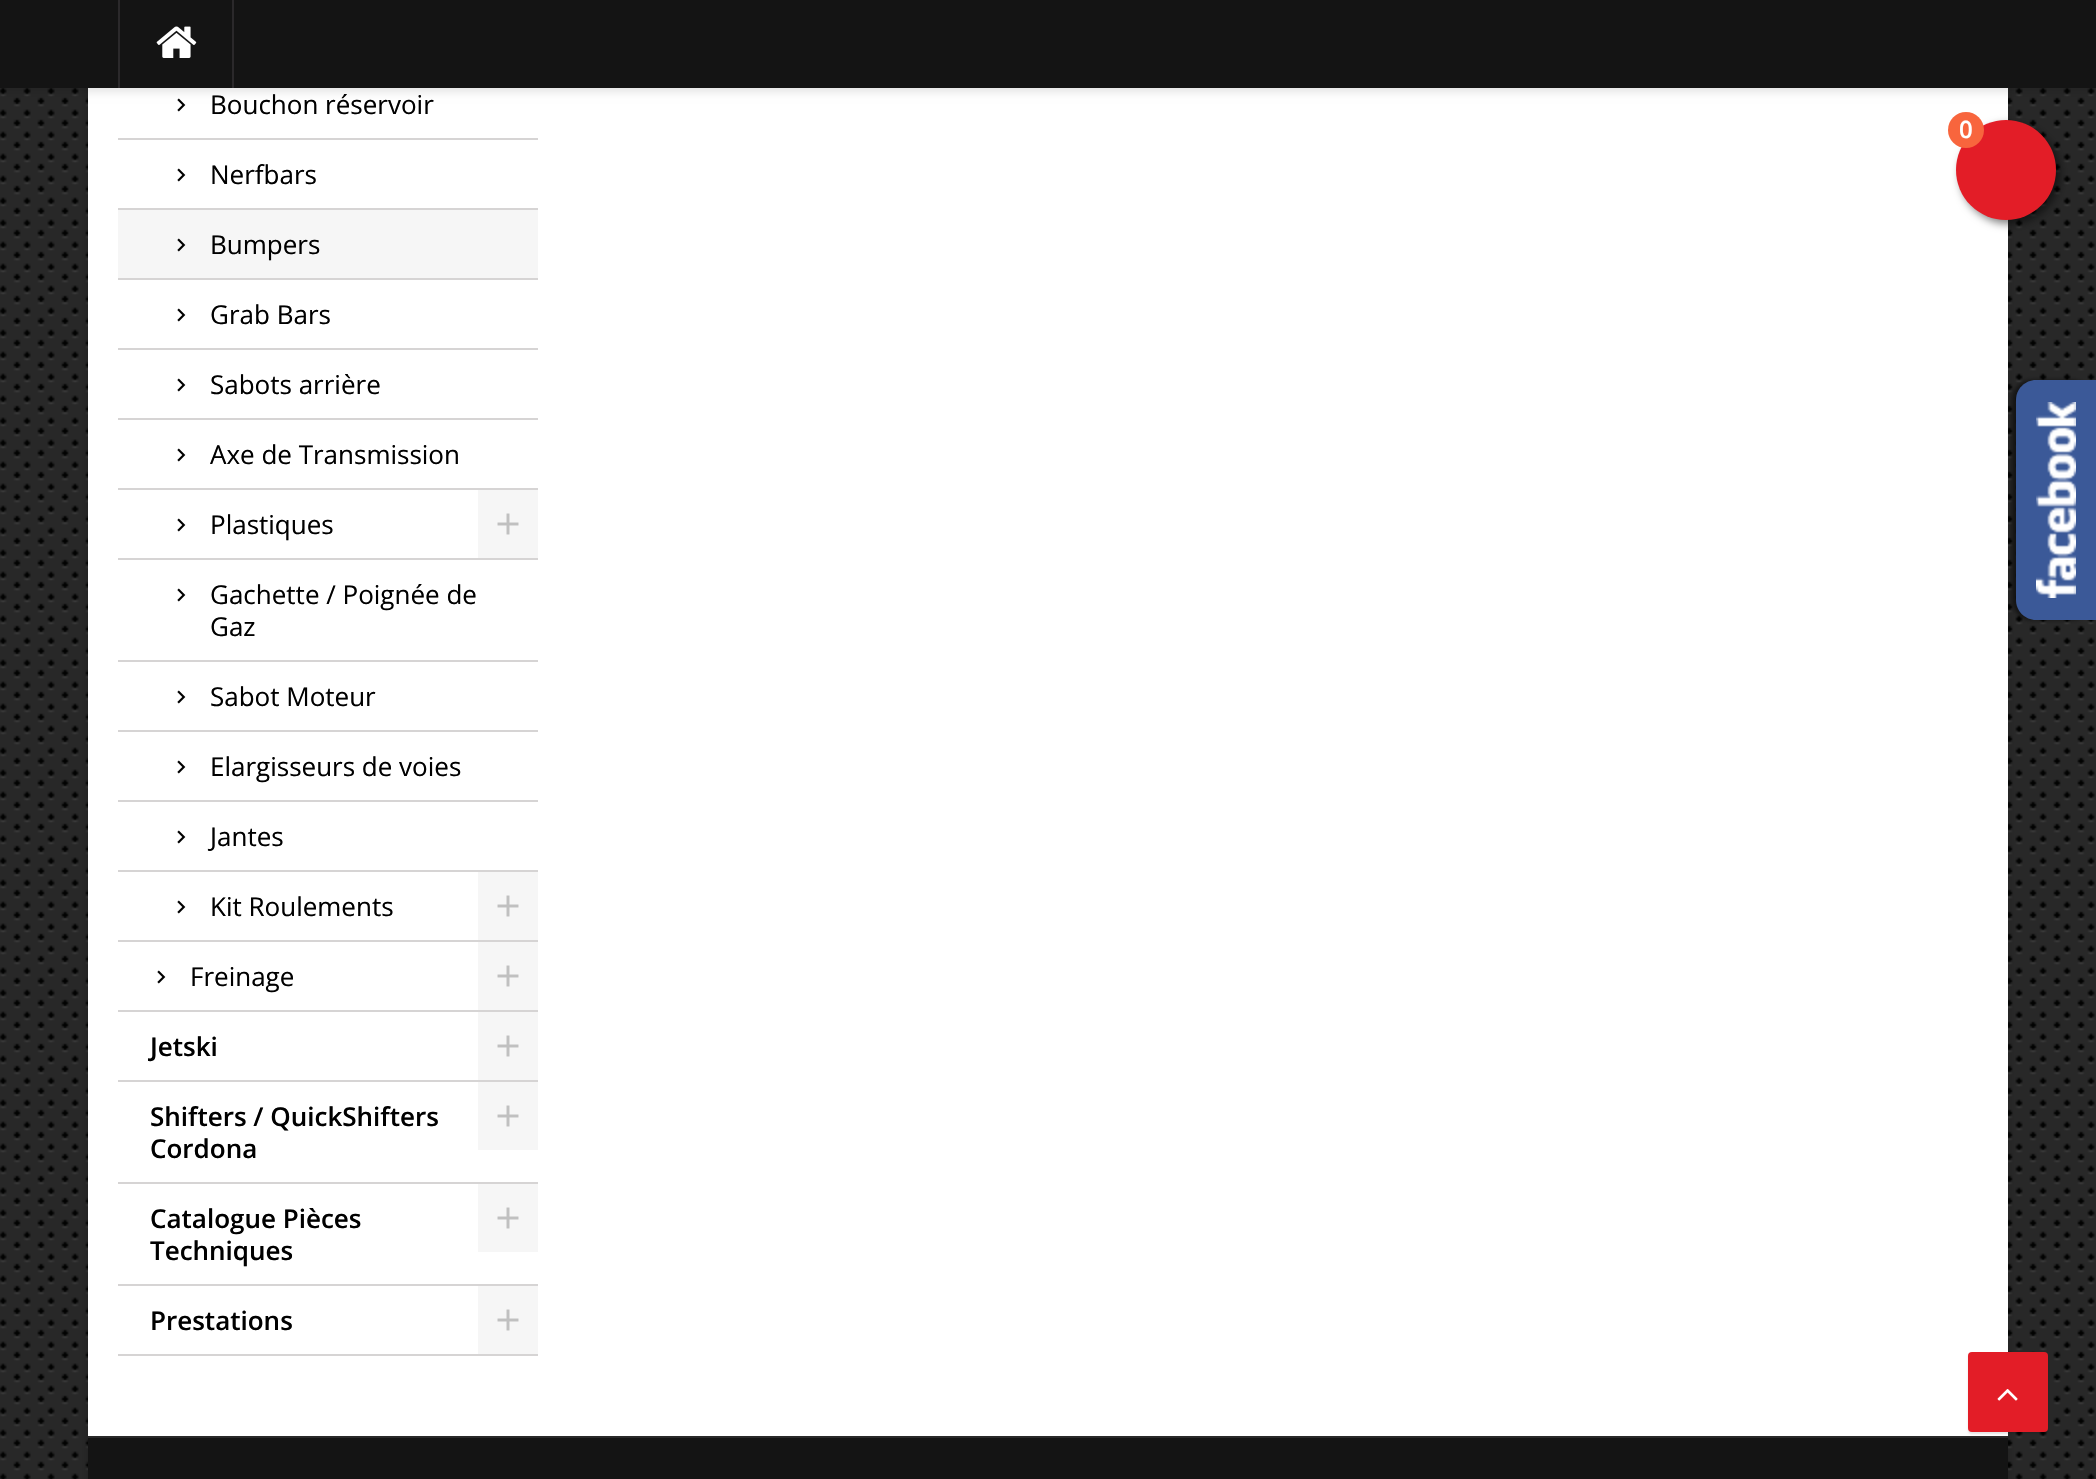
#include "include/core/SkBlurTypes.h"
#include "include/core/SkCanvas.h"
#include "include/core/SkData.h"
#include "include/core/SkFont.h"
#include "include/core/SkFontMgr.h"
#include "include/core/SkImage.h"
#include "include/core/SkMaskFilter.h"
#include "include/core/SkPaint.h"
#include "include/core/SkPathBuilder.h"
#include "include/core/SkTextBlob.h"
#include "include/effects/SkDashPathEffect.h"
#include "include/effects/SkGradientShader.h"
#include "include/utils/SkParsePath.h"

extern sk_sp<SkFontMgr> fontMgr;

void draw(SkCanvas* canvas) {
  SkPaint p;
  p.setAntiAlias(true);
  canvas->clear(SkColorSetRGB(40, 40, 40));
  canvas->drawImageRect(SkImages::DeferredFromEncodedData(SkData::MakeFromFileName("images/1.png")), SkRect::MakeLTRB(0, 88, 2095, 1479), SkSamplingOptions());
  p.setColor(SkColorSetARGB(51, 0, 0, 0));
  p.setMaskFilter(SkMaskFilter::MakeBlur(kNormal_SkBlurStyle, 4));
  canvas->drawRect(SkRect::MakeLTRB(88, -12, 2008, 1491), p);
  p.setMaskFilter(nullptr);
  p.setColor(SK_ColorWHITE);
  canvas->drawRect(SkRect::MakeLTRB(88, 88, 2008, 1436), p);
  p.setColor(SkColorSetRGB(214, 212, 212));
  canvas->drawRect(SkRect::MakeLTRB(118, 138, 538, 140), p);
  canvas->drawImageRect(SkImages::DeferredFromEncodedData(SkData::MakeFromFileName("images/2.png")), SkRect::MakeLTRB(177, 98, 186, 112), SkSamplingOptions());
  canvas->drawRect(SkRect::MakeLTRB(118, 208, 538, 210), p);
  canvas->drawImageRect(SkImages::DeferredFromEncodedData(SkData::MakeFromFileName("images/2.png")), SkRect::MakeLTRB(177, 168, 186, 182), SkSamplingOptions());
  p.setColor(SkColorSetRGB(246, 246, 246));
  canvas->drawRect(SkRect::MakeLTRB(118, 210, 538, 278), p);
  p.setColor(SkColorSetRGB(214, 212, 212));
  canvas->drawRect(SkRect::MakeLTRB(118, 278, 538, 280), p);
  canvas->drawImageRect(SkImages::DeferredFromEncodedData(SkData::MakeFromFileName("images/3.png")), SkRect::MakeLTRB(177, 238, 186, 252), SkSamplingOptions());
  canvas->drawRect(SkRect::MakeLTRB(118, 348, 538, 350), p);
  canvas->drawImageRect(SkImages::DeferredFromEncodedData(SkData::MakeFromFileName("images/2.png")), SkRect::MakeLTRB(177, 308, 186, 322), SkSamplingOptions());
  canvas->drawRect(SkRect::MakeLTRB(118, 418, 538, 420), p);
  canvas->drawImageRect(SkImages::DeferredFromEncodedData(SkData::MakeFromFileName("images/2.png")), SkRect::MakeLTRB(177, 378, 186, 392), SkSamplingOptions());
  canvas->drawRect(SkRect::MakeLTRB(118, 488, 538, 490), p);
  canvas->drawImageRect(SkImages::DeferredFromEncodedData(SkData::MakeFromFileName("images/2.png")), SkRect::MakeLTRB(177, 448, 186, 462), SkSamplingOptions());
  canvas->drawRect(SkRect::MakeLTRB(118, 558, 538, 560), p);
  canvas->drawImageRect(SkImages::DeferredFromEncodedData(SkData::MakeFromFileName("images/2.png")), SkRect::MakeLTRB(177, 518, 186, 532), SkSamplingOptions());
  p.setColor(SkColorSetRGB(246, 246, 246));
  canvas->drawRect(SkRect::MakeLTRB(478, 490, 538, 558), p);
  canvas->drawImageRect(SkImages::DeferredFromEncodedData(SkData::MakeFromFileName("images/4.png")), SkRect::MakeLTRB(497, 513, 519, 535), SkSamplingOptions());
  p.setColor(SkColorSetRGB(214, 212, 212));
  canvas->drawRect(SkRect::MakeLTRB(118, 660, 538, 662), p);
  canvas->drawImageRect(SkImages::DeferredFromEncodedData(SkData::MakeFromFileName("images/2.png")), SkRect::MakeLTRB(177, 588, 186, 602), SkSamplingOptions());
  canvas->drawRect(SkRect::MakeLTRB(118, 730, 538, 732), p);
  canvas->drawImageRect(SkImages::DeferredFromEncodedData(SkData::MakeFromFileName("images/2.png")), SkRect::MakeLTRB(177, 690, 186, 704), SkSamplingOptions());
  canvas->drawRect(SkRect::MakeLTRB(118, 800, 538, 802), p);
  canvas->drawImageRect(SkImages::DeferredFromEncodedData(SkData::MakeFromFileName("images/2.png")), SkRect::MakeLTRB(177, 760, 186, 774), SkSamplingOptions());
  canvas->drawRect(SkRect::MakeLTRB(118, 870, 538, 872), p);
  canvas->drawImageRect(SkImages::DeferredFromEncodedData(SkData::MakeFromFileName("images/2.png")), SkRect::MakeLTRB(177, 830, 186, 844), SkSamplingOptions());
  canvas->drawRect(SkRect::MakeLTRB(118, 940, 538, 942), p);
  canvas->drawImageRect(SkImages::DeferredFromEncodedData(SkData::MakeFromFileName("images/2.png")), SkRect::MakeLTRB(177, 900, 186, 914), SkSamplingOptions());
  p.setColor(SkColorSetRGB(246, 246, 246));
  canvas->drawRect(SkRect::MakeLTRB(478, 872, 538, 940), p);
  canvas->drawImageRect(SkImages::DeferredFromEncodedData(SkData::MakeFromFileName("images/4.png")), SkRect::MakeLTRB(497, 895, 519, 917), SkSamplingOptions());
  p.setColor(SkColorSetRGB(214, 212, 212));
  canvas->drawRect(SkRect::MakeLTRB(118, 1010, 538, 1012), p);
  canvas->drawImageRect(SkImages::DeferredFromEncodedData(SkData::MakeFromFileName("images/2.png")), SkRect::MakeLTRB(157, 970, 166, 984), SkSamplingOptions());
  p.setColor(SkColorSetRGB(246, 246, 246));
  canvas->drawRect(SkRect::MakeLTRB(478, 942, 538, 1010), p);
  canvas->drawImageRect(SkImages::DeferredFromEncodedData(SkData::MakeFromFileName("images/4.png")), SkRect::MakeLTRB(497, 965, 519, 987), SkSamplingOptions());
  p.setColor(SkColorSetRGB(214, 212, 212));
  canvas->drawRect(SkRect::MakeLTRB(118, 1080, 538, 1082), p);
  p.setColor(SkColorSetRGB(246, 246, 246));
  canvas->drawRect(SkRect::MakeLTRB(478, 1012, 538, 1080), p);
  canvas->drawImageRect(SkImages::DeferredFromEncodedData(SkData::MakeFromFileName("images/4.png")), SkRect::MakeLTRB(497, 1035, 519, 1057), SkSamplingOptions());
  p.setColor(SkColorSetRGB(214, 212, 212));
  canvas->drawRect(SkRect::MakeLTRB(118, 1182, 538, 1184), p);
  p.setColor(SkColorSetRGB(246, 246, 246));
  canvas->drawRect(SkRect::MakeLTRB(478, 1082, 538, 1150), p);
  canvas->drawImageRect(SkImages::DeferredFromEncodedData(SkData::MakeFromFileName("images/4.png")), SkRect::MakeLTRB(497, 1105, 519, 1127), SkSamplingOptions());
  p.setColor(SkColorSetRGB(214, 212, 212));
  canvas->drawRect(SkRect::MakeLTRB(118, 1284, 538, 1286), p);
  p.setColor(SkColorSetRGB(246, 246, 246));
  canvas->drawRect(SkRect::MakeLTRB(478, 1184, 538, 1252), p);
  canvas->drawImageRect(SkImages::DeferredFromEncodedData(SkData::MakeFromFileName("images/4.png")), SkRect::MakeLTRB(497, 1207, 519, 1229), SkSamplingOptions());
  p.setColor(SkColorSetRGB(214, 212, 212));
  canvas->drawRect(SkRect::MakeLTRB(118, 1354, 538, 1356), p);
  p.setColor(SkColorSetRGB(246, 246, 246));
  canvas->drawRect(SkRect::MakeLTRB(478, 1286, 538, 1354), p);
  canvas->drawImageRect(SkImages::DeferredFromEncodedData(SkData::MakeFromFileName("images/4.png")), SkRect::MakeLTRB(497, 1309, 519, 1331), SkSamplingOptions());
  p.setColor(SkColorSetARGB(128, 0, 0, 0));
  p.setMaskFilter(SkMaskFilter::MakeBlur(kNormal_SkBlurStyle, 2));
  canvas->drawRoundRect(SkRect::MakeLTRB(2012, 380, 2092, 620), 20, 20, p);
  p.setMaskFilter(nullptr);
  p.setColor(SkColorSetRGB(59, 89, 152));
  canvas->drawPath(SkPathBuilder().moveTo(2036, 380).lineTo(2096, 380).lineTo(2096, 620).lineTo(2036, 620).cubicTo(2025, 620, 2016, 611, 2016, 600).lineTo(2016, 400).cubicTo(2016, 389, 2025, 380, 2036, 380).close().detach(), p);
  canvas->drawImageRect(SkImages::DeferredFromEncodedData(SkData::MakeFromFileName("images/5.png")), SkRect::MakeLTRB(2036, 402, 2076, 598), SkSamplingOptions());
  p.setColor(SkColorSetARGB(26, 0, 0, 0));
  p.setMaskFilter(SkMaskFilter::MakeBlur(kNormal_SkBlurStyle, 4));
  canvas->drawRect(SkRect::MakeLTRB(0, 4, 2096, 92), p);
  p.setMaskFilter(nullptr);
  p.setColor(SkColorSetRGB(20, 20, 20));
  canvas->drawRect(SkRect::MakeLTRB(0, 0, 2096, 88), p);
  p.setColor(SkColorSetRGB(43, 41, 43));
  canvas->drawRect(SkRect::MakeLTRB(232, 0, 234, 88), p);
  canvas->drawRect(SkRect::MakeLTRB(118, 0, 120, 88), p);
  canvas->drawImageRect(SkImages::DeferredFromEncodedData(SkData::MakeFromFileName("images/6.png")), SkRect::MakeLTRB(156, 26, 197, 58), SkSamplingOptions());
  p.setColor(SkColorSetARGB(128, 0, 0, 0));
  p.setMaskFilter(SkMaskFilter::MakeBlur(kNormal_SkBlurStyle, 4));
  canvas->drawRoundRect(SkRect::MakeLTRB(1960, 124, 2060, 224), 50, 50, p);
  p.setMaskFilter(nullptr);
  p.setColor(SkColorSetRGB(227, 29, 39));
  canvas->drawCircle(2006, 170, 50, p);
  p.setColor(SkColorSetRGB(248, 101, 61));
  canvas->drawCircle(1966, 130, 18, p);
  p.setColor(SkColorSetRGB(20, 20, 20));
  canvas->drawRect(SkRect::MakeLTRB(88, 1438, 2008, 1479), p);
  p.setColor(SkColorSetRGB(41, 41, 41));
  canvas->drawRect(SkRect::MakeLTRB(88, 1436, 2008, 1438), p);
  p.setColor(SkColorSetARGB(26, 0, 0, 0));
  p.setMaskFilter(SkMaskFilter::MakeBlur(kNormal_SkBlurStyle, 1));
  canvas->drawRoundRect(SkRect::MakeLTRB(1968, 1354, 2048, 1434), 4, 4, p);
  p.setMaskFilter(nullptr);
  p.setColor(SkColorSetRGB(227, 29, 39));
  canvas->drawRoundRect(SkRect::MakeLTRB(1968, 1352, 2048, 1432), 4, 4, p);
  canvas->drawImageRect(SkImages::DeferredFromEncodedData(SkData::MakeFromFileName("images/7.png")), SkRect::MakeLTRB(1997, 1389, 2018, 1401), SkSamplingOptions());
  SkFont font1(fontMgr->matchFamilyStyle("Open Sans", SkFontStyle::Normal()), 26);
  font1.setSubpixel(true);
  p.setColor(SK_ColorBLACK);
  canvas->drawString("Bouchon réservoir", 210, 114, font1, p);
  canvas->drawString("Nerfbars", 210, 184, font1, p);
  canvas->drawString("Bumpers", 210, 254, font1, p);
  canvas->drawString("Grab Bars", 210, 324, font1, p);
  canvas->drawString("Sabots arrière", 210, 394, font1, p);
  canvas->drawString("Axe de Transmission", 210, 464, font1, p);
  canvas->drawString("Plastiques", 210, 534, font1, p);
  canvas->drawString("Gachette / Poignée de", 210, 604, font1, p);
  canvas->drawString("Gaz", 210, 636, font1, p);
  canvas->drawString("Sabot Moteur", 210, 706, font1, p);
  canvas->drawString("Elargisseurs de voies", 210, 776, font1, p);
  canvas->drawString("Jantes", 210, 846, font1, p);
  canvas->drawString("Kit Roulements", 210, 916, font1, p);
  canvas->drawString("Freinage", 190, 986, font1, p);
  SkFont font2(fontMgr->matchFamilyStyle("Open Sans", SkFontStyle(600, SkFontStyle::kNormal_Width, SkFontStyle::kUpright_Slant)), 26);
  font2.setSubpixel(true);
  canvas->drawString("Jetski", 150, 1056, font2, p);
  canvas->drawString("Shifters / QuickShifters", 150, 1126, font2, p);
  canvas->drawString("Cordona", 150, 1158, font2, p);
  canvas->drawString("Catalogue Pièces", 150, 1228, font2, p);
  canvas->drawString("Techniques", 150, 1260, font2, p);
  canvas->drawString("Prestations", 150, 1330, font2, p);
  SkFont font3(fontMgr->matchFamilyStyle("Open Sans", SkFontStyle(600, SkFontStyle::kNormal_Width, SkFontStyle::kUpright_Slant)), 24);
  font3.setSubpixel(true);
  p.setColor(SK_ColorWHITE);
  canvas->drawString("0", 1959, 138, font3, p);
}
